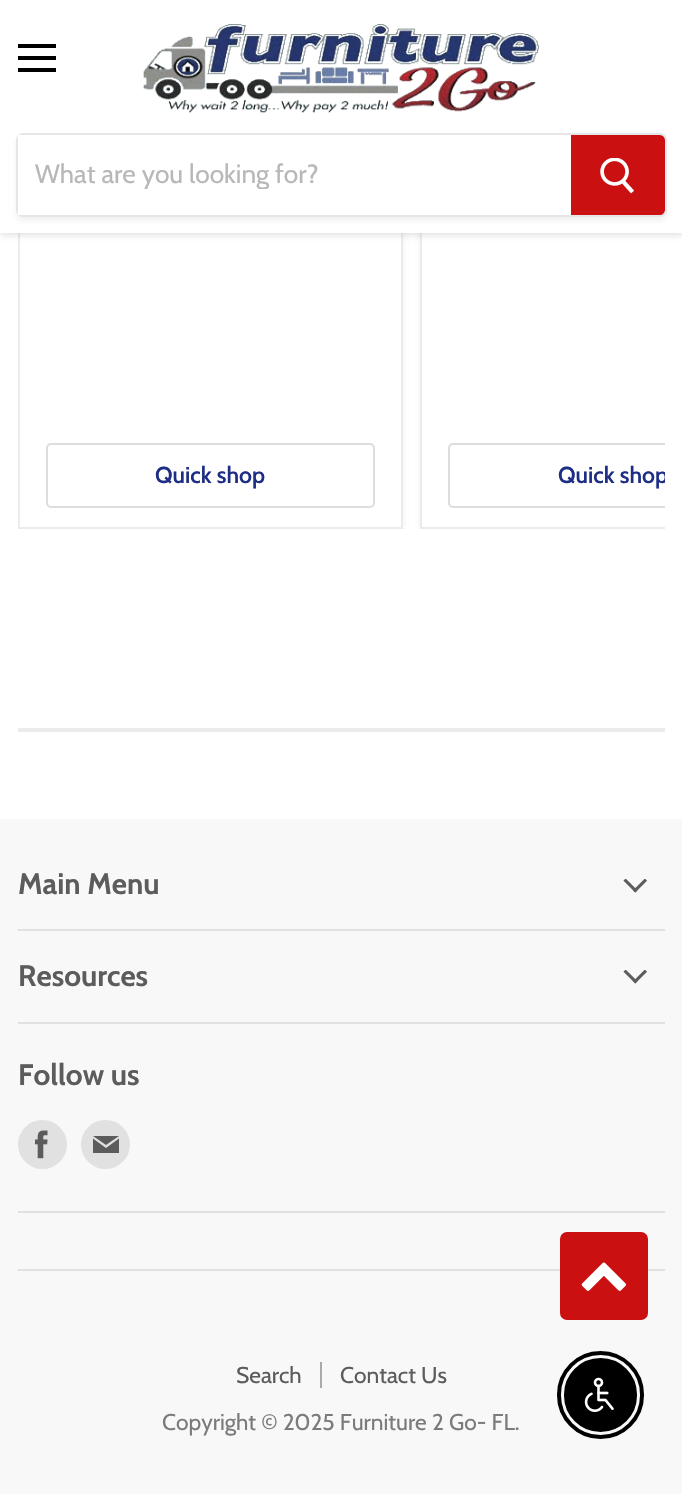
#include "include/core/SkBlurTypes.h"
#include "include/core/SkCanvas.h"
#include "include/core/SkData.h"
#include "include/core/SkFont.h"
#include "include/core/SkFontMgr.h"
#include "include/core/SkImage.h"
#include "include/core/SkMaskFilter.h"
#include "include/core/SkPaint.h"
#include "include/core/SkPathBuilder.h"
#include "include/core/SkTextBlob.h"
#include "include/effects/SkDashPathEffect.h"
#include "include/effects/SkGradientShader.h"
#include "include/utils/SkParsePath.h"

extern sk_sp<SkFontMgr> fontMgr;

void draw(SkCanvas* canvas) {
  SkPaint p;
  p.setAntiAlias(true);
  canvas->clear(SK_ColorWHITE);
  canvas->save();
  canvas->clipRect(SkRect::MakeLTRB(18, 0, 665, 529));
  p.setColor(SkColorSetARGB(28, 128, 128, 128));
  p.setMaskFilter(SkMaskFilter::MakeBlur(kNormal_SkBlurStyle, 3.5f));
  canvas->drawRect(SkRect::MakeLTRB(18, -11, 403, 530), p);
  p.setMaskFilter(nullptr);
  canvas->restore();
  p.setColor(SK_ColorWHITE);
  canvas->drawRect(SkRect::MakeLTRB(20, 233, 401, 527), p);
  p.setStyle(SkPaint::kStroke_Style);
  p.setStrokeWidth(2);
  p.setColor(SkColorSetRGB(235, 235, 235));
  canvas->drawRect(SkRect::MakeLTRB(19, -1, 402, 528), p);
  canvas->save();
  canvas->clipRect(SkRect::MakeLTRB(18, 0, 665, 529));
  p.setStyle(SkPaint::kFill_Style);
  p.setColor(SkColorSetARGB(28, 128, 128, 128));
  p.setMaskFilter(SkMaskFilter::MakeBlur(kNormal_SkBlurStyle, 3.5f));
  canvas->drawRect(SkRect::MakeLTRB(420, -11, 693, 530), p);
  p.setMaskFilter(nullptr);
  canvas->restore();
  p.setColor(SK_ColorWHITE);
  canvas->drawRect(SkRect::MakeLTRB(422, 233, 665, 527), p);
  canvas->save();
  canvas->clipRect(SkRect::MakeLTRB(18, 0, 665, 529));
  p.setStyle(SkPaint::kStroke_Style);
  p.setColor(SkColorSetRGB(235, 235, 235));
  canvas->drawRect(SkRect::MakeLTRB(421, -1, 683, 528), p);
  canvas->restore();
  p.setStyle(SkPaint::kFill_Style);
  p.setColor(SkColorSetARGB(64, 128, 128, 128));
  p.setMaskFilter(SkMaskFilter::MakeBlur(kNormal_SkBlurStyle, 3.5f));
  canvas->drawRect(SkRect::MakeLTRB(0, 2, 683, 235), p);
  p.setMaskFilter(nullptr);
  p.setColor(SK_ColorWHITE);
  canvas->drawRect(SkRect::MakeLTRB(0, 0, 682, 233), p);
  p.setColor(SK_ColorBLACK);
  canvas->drawRect(SkRect::MakeLTRB(18, 44, 56, 48), p);
  canvas->drawRect(SkRect::MakeLTRB(18, 56, 56, 60), p);
  canvas->drawRect(SkRect::MakeLTRB(18, 68, 56, 72), p);
  canvas->drawImageRect(SkImages::DeferredFromEncodedData(SkData::MakeFromFileName("images/1.png")), SkRect::MakeLTRB(143, 24, 539, 113), SkSamplingOptions());
  canvas->save();
  canvas->clipPath(SkPathBuilder(SkPathFillType::kEvenOdd).moveTo(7, 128).lineTo(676, 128).lineTo(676, 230).lineTo(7, 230).close().moveTo(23, 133).lineTo(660, 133).cubicTo(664, 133, 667, 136, 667, 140).lineTo(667, 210).cubicTo(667, 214, 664, 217, 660, 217).lineTo(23, 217).cubicTo(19, 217, 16, 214, 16, 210).lineTo(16, 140).cubicTo(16, 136, 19, 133, 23, 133).close().detach(), true);
  p.setColor(SkColorSetARGB(28, 128, 128, 128));
  p.setMaskFilter(SkMaskFilter::MakeBlur(kNormal_SkBlurStyle, 2.5f));
  canvas->drawRoundRect(SkRect::MakeLTRB(16, 137, 667, 221), 7, 7, p);
  p.setMaskFilter(nullptr);
  canvas->restore();
  p.setStyle(SkPaint::kStroke_Style);
  p.setColor(SkColorSetARGB(51, 128, 128, 128));
  canvas->drawRoundRect(SkRect::MakeLTRB(17, 134, 666, 216), 6, 6, p);
  p.setStyle(SkPaint::kFill_Style);
  p.setColor(SK_ColorWHITE);
  canvas->drawRect(SkRect::MakeLTRB(18, 135, 22, 215), p);
  p.setColor(SkColorSetRGB(202, 16, 16));
  canvas->drawPath(SkPathBuilder().moveTo(572, 136).lineTo(660, 136).cubicTo(662, 136, 664, 138, 664, 140).lineTo(664, 210).cubicTo(664, 212, 662, 214, 660, 214).lineTo(572, 214).close().detach(), p);
  p.setStyle(SkPaint::kStroke_Style);
  canvas->drawPath(SkPathBuilder().moveTo(572, 136).lineTo(660, 136).cubicTo(662, 136, 664, 138, 664, 140).lineTo(664, 210).cubicTo(664, 212, 662, 214, 660, 214).lineTo(572, 214).close().detach(), p);
  canvas->drawImageRect(SkImages::DeferredFromEncodedData(SkData::MakeFromFileName("images/2.png")), SkRect::MakeLTRB(600, 158, 634, 194), SkSamplingOptions());
  p.setColor(SkColorSetRGB(221, 221, 221));
  canvas->drawRoundRect(SkRect::MakeLTRB(47, 444, 374, 507), 4, 4, p);
  canvas->save();
  canvas->clipRect(SkRect::MakeLTRB(18, 0, 665, 529));
  canvas->drawRoundRect(SkRect::MakeLTRB(449, 444, 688, 507), 4, 4, p);
  canvas->restore();
  p.setStyle(SkPaint::kFill_Style);
  p.setColor(SkColorSetARGB(41, 128, 128, 128));
  canvas->drawRect(SkRect::MakeLTRB(18, 728, 665, 732), p);
  p.setColor(SkColorSetRGB(248, 248, 248));
  canvas->drawRect(SkRect::MakeLTRB(0, 819, 682, 1494), p);
  p.setColor(SkColorSetRGB(225, 225, 225));
  canvas->drawRect(SkRect::MakeLTRB(18, 929, 665, 931), p);
  canvas->drawImageRect(SkImages::DeferredFromEncodedData(SkData::MakeFromFileName("images/3.png")), SkRect::MakeLTRB(623, 879, 647, 893), SkSamplingOptions());
  canvas->drawRect(SkRect::MakeLTRB(18, 1022, 665, 1024), p);
  canvas->drawImageRect(SkImages::DeferredFromEncodedData(SkData::MakeFromFileName("images/3.png")), SkRect::MakeLTRB(623, 970, 647, 984), SkSamplingOptions());
  canvas->drawRect(SkRect::MakeLTRB(18, 1211, 665, 1213), p);
  canvas->drawCircle(42.5f, 1144.5f, 24.5f, p);
  canvas->drawImageRect(SkImages::DeferredFromEncodedData(SkData::MakeFromFileName("images/4.png")), SkRect::MakeLTRB(35, 1130, 48, 1159), SkSamplingOptions());
  canvas->drawCircle(105.5f, 1144.5f, 24.5f, p);
  p.setColor(SkColorSetRGB(92, 92, 92));
  canvas->drawPath(SkPathBuilder(SkPathFillType::kEvenOdd).moveTo(119, 1136).lineTo(93, 1136).lineTo(106, 1145).close().moveTo(106, 1148).lineTo(93, 1138.5f).lineTo(93, 1153).lineTo(119, 1153).lineTo(119, 1138.5f).close().detach(), p);
  p.setColor(SkColorSetRGB(225, 225, 225));
  canvas->drawRect(SkRect::MakeLTRB(18, 1269, 665, 1271), p);
  canvas->drawImageRect(SkImages::DeferredFromEncodedData(SkData::MakeFromFileName("images/5.png")), SkRect::MakeLTRB(646, 1235, 647, 1236), SkSamplingOptions());
  p.setColor(SkColorSetRGB(170, 170, 170));
  canvas->drawRect(SkRect::MakeLTRB(320, 1362, 322, 1388), p);
  p.setColor(SkColorSetRGB(202, 16, 16));
  canvas->drawRoundRect(SkRect::MakeLTRB(560, 1232, 648, 1320), 7, 7, p);
  canvas->drawImageRect(SkImages::DeferredFromEncodedData(SkData::MakeFromFileName("images/6.png")), SkRect::MakeLTRB(581, 1262, 626, 1291), SkSamplingOptions());
  p.setStyle(SkPaint::kStroke_Style);
  p.setStrokeWidth(4);
  p.setColor(SK_ColorBLACK);
  canvas->drawRoundRect(SkRect::MakeLTRB(559, 1353, 642, 1437), 41.5f, 41.5f, p);
  p.setStyle(SkPaint::kFill_Style);
  canvas->drawRoundRect(SkRect::MakeLTRB(565, 1359, 636, 1431), 35.5f, 35.5f, p);
  p.setStyle(SkPaint::kStroke_Style);
  p.setStrokeWidth(2);
  canvas->drawRoundRect(SkRect::MakeLTRB(565, 1359, 636, 1431), 35.5f, 35.5f, p);
  canvas->drawImageRect(SkImages::DeferredFromEncodedData(SkData::MakeFromFileName("images/7.png")), SkRect::MakeLTRB(584, 1377, 614, 1412), SkSamplingOptions());
  canvas->save();
  canvas->clipRect(SkRect::MakeLTRB(35, 158, 553, 189));
  SkFont font1(fontMgr->matchFamilyStyle("Cabin", SkFontStyle::Normal()), 26.25f);
  font1.setSubpixel(true);
  p.setStyle(SkPaint::kFill_Style);
  p.setColor(SkColorSetRGB(184, 184, 184));
  canvas->drawString("What are you looking for?", 35, 183, font1, p);
  canvas->restore();
  SkFont font2(fontMgr->matchFamilyStyle("Cabin", SkFontStyle(600, SkFontStyle::kNormal_Width, SkFontStyle::kUpright_Slant)), 23);
  font2.setSubpixel(true);
  p.setColor(SkColorSetRGB(30, 45, 133));
  canvas->drawString("Quick shop", 155, 483, font2, p);
  canvas->save();
  canvas->clipRect(SkRect::MakeLTRB(18, 0, 665, 529));
  canvas->drawString("Quick shop", 558, 483, font2, p);
  canvas->restore();
  SkFont font3(fontMgr->matchFamilyStyle("Cabin", SkFontStyle::Bold()), 29.5f);
  font3.setSubpixel(true);
  p.setColor(SkColorSetRGB(92, 92, 92));
  canvas->drawString("Main Menu", 18, 894, font3, p);
  canvas->drawString("Resources", 18, 986, font3, p);
  canvas->drawString("Follow us", 18, 1085, font3, p);
  SkFont font4(fontMgr->matchFamilyStyle("Cabin", SkFontStyle::Normal()), 22.75f);
  font4.setSubpixel(true);
  canvas->drawString("Search", 236, 1383, font4, p);
  canvas->drawString("Contact Us", 340, 1383, font4, p);
  p.setColor(SkColorSetRGB(123, 123, 123));
  canvas->drawString("Copyright © 2025 Furniture 2 Go- FL.", 162, 1430, font4, p);
}
